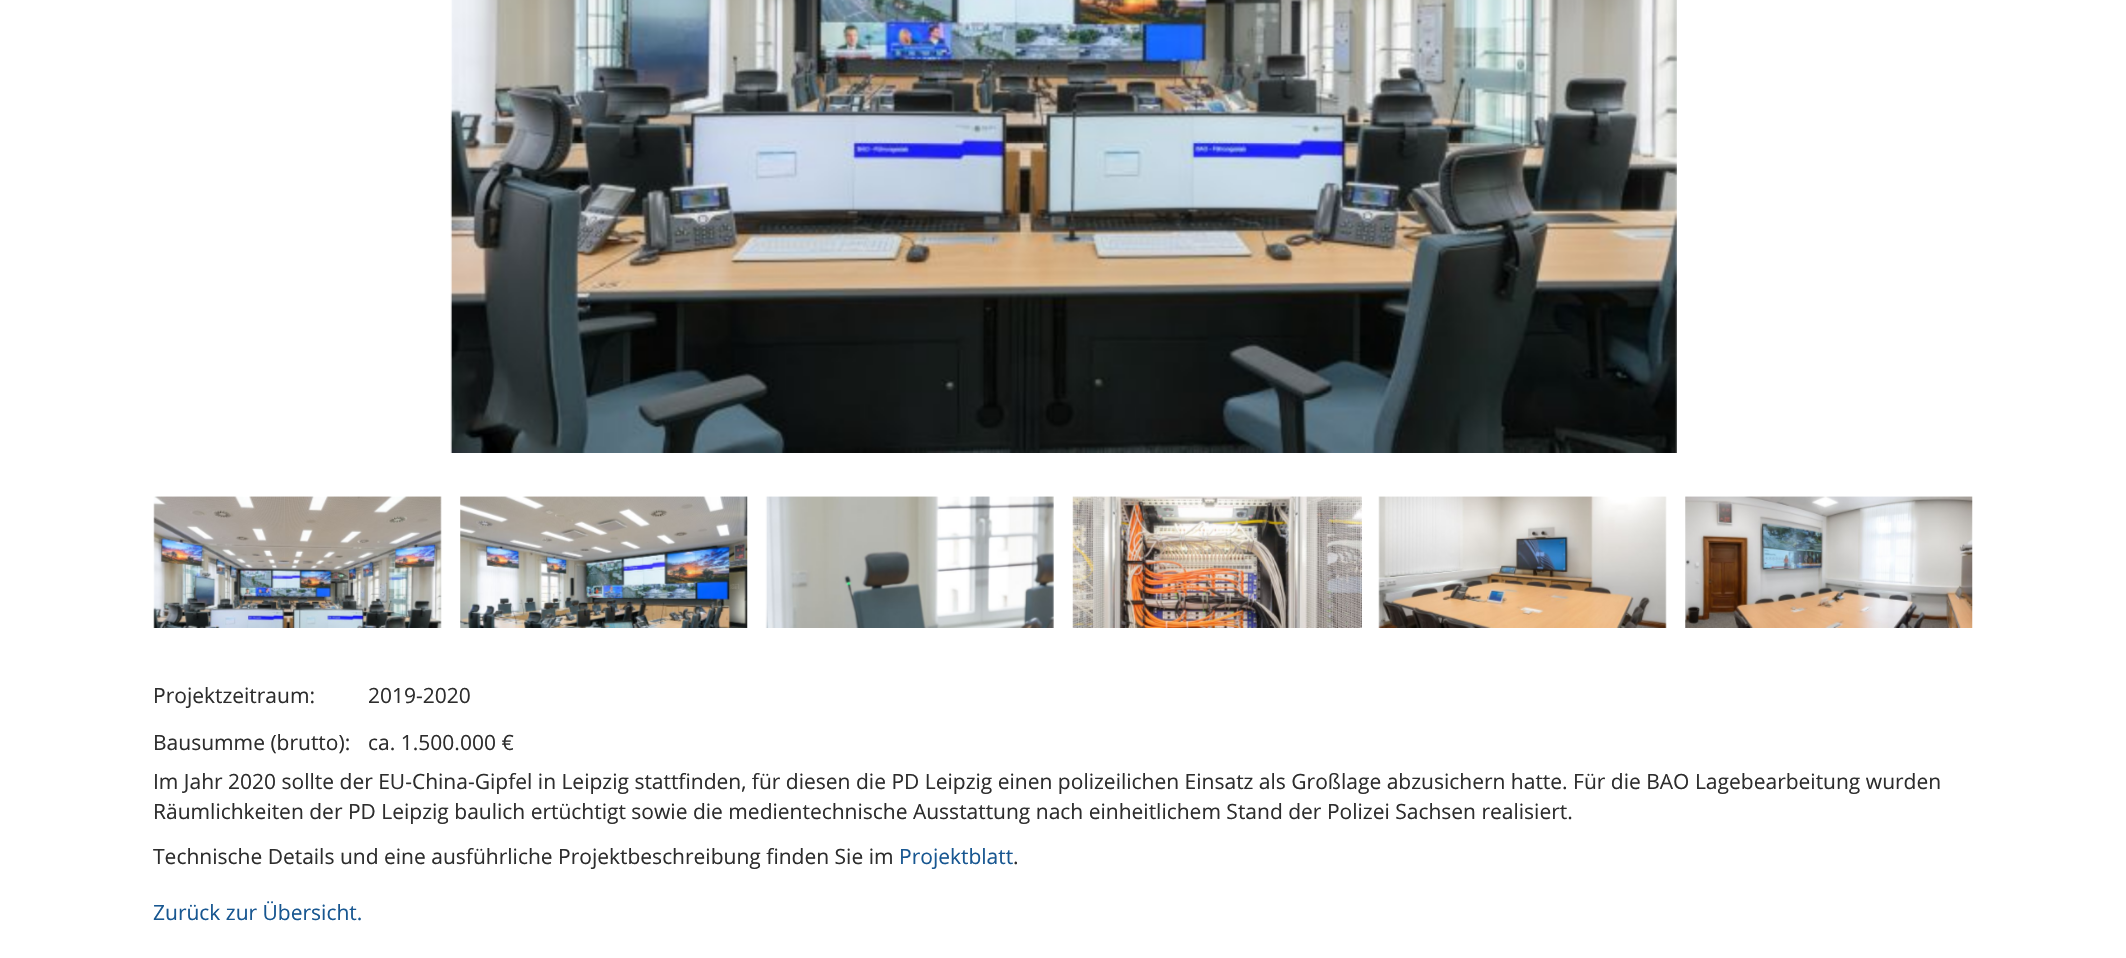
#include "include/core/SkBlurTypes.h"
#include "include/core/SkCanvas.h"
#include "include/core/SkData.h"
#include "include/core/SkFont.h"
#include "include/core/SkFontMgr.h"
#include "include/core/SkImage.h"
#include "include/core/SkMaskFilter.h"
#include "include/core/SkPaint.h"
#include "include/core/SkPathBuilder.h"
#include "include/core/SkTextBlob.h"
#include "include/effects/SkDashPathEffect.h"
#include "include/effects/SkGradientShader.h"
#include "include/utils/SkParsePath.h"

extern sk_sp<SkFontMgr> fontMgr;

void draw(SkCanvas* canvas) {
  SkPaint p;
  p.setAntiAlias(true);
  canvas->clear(SK_ColorWHITE);
  canvas->drawImageRect(SkImages::DeferredFromEncodedData(SkData::MakeFromFileName("images/1.png")), SkRect::MakeLTRB(450, 0, 1677, 453), SkSamplingOptions());
  canvas->drawImageRect(SkImages::DeferredFromEncodedData(SkData::MakeFromFileName("images/2.png")), SkRect::MakeLTRB(153, 496, 442, 628), SkSamplingOptions());
  canvas->drawImageRect(SkImages::DeferredFromEncodedData(SkData::MakeFromFileName("images/3.png")), SkRect::MakeLTRB(460, 496, 748, 628), SkSamplingOptions());
  canvas->drawImageRect(SkImages::DeferredFromEncodedData(SkData::MakeFromFileName("images/4.png")), SkRect::MakeLTRB(765, 496, 1054, 628), SkSamplingOptions());
  canvas->drawImageRect(SkImages::DeferredFromEncodedData(SkData::MakeFromFileName("images/5.png")), SkRect::MakeLTRB(1072, 496, 1362, 628), SkSamplingOptions());
  canvas->drawImageRect(SkImages::DeferredFromEncodedData(SkData::MakeFromFileName("images/6.png")), SkRect::MakeLTRB(1378, 496, 1667, 628), SkSamplingOptions());
  canvas->drawImageRect(SkImages::DeferredFromEncodedData(SkData::MakeFromFileName("images/7.png")), SkRect::MakeLTRB(1685, 496, 1973, 628), SkSamplingOptions());
  SkFont font1(fontMgr->matchFamilyStyle("Open Sans", SkFontStyle::Normal()), 21);
  font1.setSubpixel(true);
  p.setColor(SkColorSetRGB(45, 45, 45));
  canvas->drawString("Projektzeitraum:", 153, 703, font1, p);
  canvas->drawString("2019-2020", 368, 703, font1, p);
  canvas->drawString("Bausumme (brutto):", 153, 750, font1, p);
  canvas->drawString("ca. 1.500.000 €", 368, 750, font1, p);
  canvas->drawString("Im Jahr 2020 sollte der EU-China-Gipfel in Leipzig stattfinden, für diesen die PD Leipzig einen polizeilichen Einsatz als Großlage abzusichern hatte. Für die BAO Lagebearbeitung wurden", 153, 789, font1, p);
  canvas->drawString("Räumlichkeiten der PD Leipzig baulich ertüchtigt sowie die medientechnische Ausstattung nach einheitlichem Stand der Polizei Sachsen realisiert.", 153, 819, font1, p);
  canvas->drawString("Technische Details und eine ausführliche Projektbeschreibung finden Sie im", 153, 864, font1, p);
  p.setColor(SkColorSetRGB(24, 87, 145));
  canvas->drawString("Projektblatt", 899, 864, font1, p);
  p.setColor(SkColorSetRGB(45, 45, 45));
  canvas->drawString(".", 1013, 864, font1, p);
  p.setColor(SkColorSetRGB(24, 87, 145));
  canvas->drawString("Zurück zur Übersicht.", 153, 920, font1, p);
}
